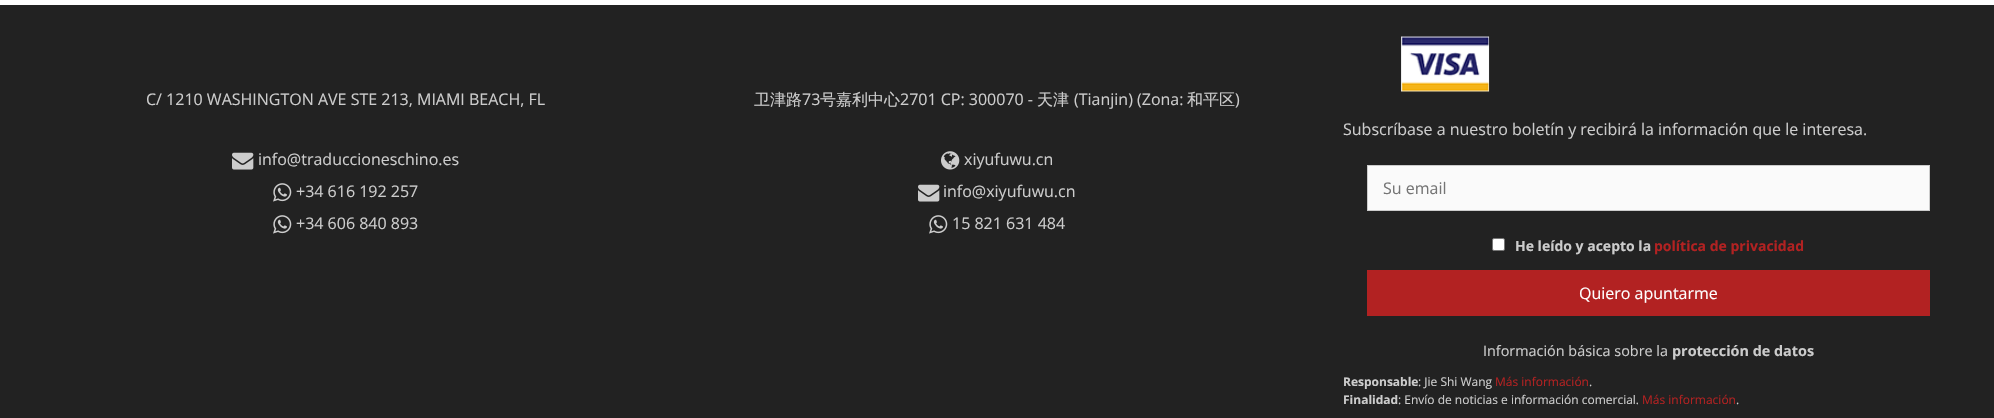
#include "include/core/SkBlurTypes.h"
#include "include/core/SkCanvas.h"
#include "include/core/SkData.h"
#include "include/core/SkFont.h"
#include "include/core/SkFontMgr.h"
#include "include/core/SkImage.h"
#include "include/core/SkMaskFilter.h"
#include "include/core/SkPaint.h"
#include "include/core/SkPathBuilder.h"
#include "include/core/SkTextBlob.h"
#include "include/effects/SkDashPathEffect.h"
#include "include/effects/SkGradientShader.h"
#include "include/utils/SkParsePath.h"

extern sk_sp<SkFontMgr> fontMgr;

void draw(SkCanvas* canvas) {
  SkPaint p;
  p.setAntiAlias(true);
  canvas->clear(SkColorSetRGB(34, 34, 34));
  p.setColor(SK_ColorWHITE);
  canvas->drawRect(SkRect::MakeLTRB(0, 0, 1994, 5), p);
  canvas->drawImageRect(SkImages::DeferredFromEncodedData(SkData::MakeFromFileName("images/1.png")), SkRect::MakeLTRB(232, 152, 254, 170), SkSamplingOptions());
  canvas->drawImageRect(SkImages::DeferredFromEncodedData(SkData::MakeFromFileName("images/2.png")), SkRect::MakeLTRB(273, 183, 292, 202), SkSamplingOptions());
  canvas->drawImageRect(SkImages::DeferredFromEncodedData(SkData::MakeFromFileName("images/2.png")), SkRect::MakeLTRB(273, 215, 292, 234), SkSamplingOptions());
  canvas->drawImageRect(SkImages::DeferredFromEncodedData(SkData::MakeFromFileName("images/3.png")), SkRect::MakeLTRB(941, 151, 960, 170), SkSamplingOptions());
  canvas->drawImageRect(SkImages::DeferredFromEncodedData(SkData::MakeFromFileName("images/1.png")), SkRect::MakeLTRB(918, 184, 940, 202), SkSamplingOptions());
  canvas->drawImageRect(SkImages::DeferredFromEncodedData(SkData::MakeFromFileName("images/2.png")), SkRect::MakeLTRB(929, 215, 948, 234), SkSamplingOptions());
  canvas->drawImageRect(SkImages::DeferredFromEncodedData(SkData::MakeFromFileName("images/4.png")), SkRect::MakeLTRB(1401, 36, 1490, 92), SkSamplingOptions());
  p.setColor(SkColorSetRGB(250, 250, 250));
  canvas->drawRect(SkRect::MakeLTRB(1367.5f, 165.5f, 1929.5f, 210.5f), p);
  p.setStyle(SkPaint::kStroke_Style);
  p.setStrokeWidth(1);
  p.setColor(SkColorSetRGB(204, 204, 204));
  canvas->drawRect(SkRect::MakeLTRB(1367.5f, 165.5f, 1929.5f, 210.5f), p);
  p.setStyle(SkPaint::kFill_Style);
  p.setColor(SK_ColorWHITE);
  canvas->drawRoundRect(SkRect::MakeLTRB(1492.5f, 238.5f, 1504.5f, 250.5f), 1.5f, 1.5f, p);
  p.setStyle(SkPaint::kStroke_Style);
  p.setColor(SkColorSetRGB(118, 118, 118));
  canvas->drawRoundRect(SkRect::MakeLTRB(1492.5f, 238.5f, 1504.5f, 250.5f), 1.5f, 1.5f, p);
  p.setStyle(SkPaint::kFill_Style);
  p.setColor(SkColorSetRGB(178, 34, 34));
  canvas->drawRect(SkRect::MakeLTRB(1367, 270, 1930, 316), p);
  SkFont font1(fontMgr->matchFamilyStyle("Open Sans", SkFontStyle::Normal()), 16);
  font1.setSubpixel(true);
  p.setColor(SkColorSetRGB(204, 204, 204));
  canvas->drawString("C/ 1210 WASHINGTON AVE STE 213, MIAMI BEACH, FL", 146, 105, font1, p);
  canvas->drawString("info@traduccioneschino.es", 258, 165, font1, p);
  canvas->drawString("+34 616 192 257", 296, 197, font1, p);
  canvas->drawString("+34 606 840 893", 296, 229, font1, p);
  SkFont font2(fontMgr->matchFamilyStyle("WenQuanYi Zen Hei", SkFontStyle(500, SkFontStyle::kNormal_Width, SkFontStyle::kUpright_Slant)), 16);
  font2.setSubpixel(true);
  canvas->drawString("卫津路", 754, 105, font2, p);
  canvas->drawString("73", 802, 105, font1, p);
  canvas->drawString("号嘉利中心", 820, 105, font2, p);
  canvas->drawString("2701 CP: 300070 -", 900, 105, font1, p);
  canvas->drawString("天津", 1037, 105, font2, p);
  canvas->drawString("(Tianjin) (Zona:", 1074, 105, font1, p);
  canvas->drawString("和平区", 1187, 105, font2, p);
  canvas->drawString(")", 1235, 105, font1, p);
  canvas->drawString("xiyufuwu.cn", 964, 165, font1, p);
  canvas->drawString("info@xiyufuwu.cn", 943, 197, font1, p);
  canvas->drawString("15 821 631 484", 952, 229, font1, p);
  canvas->drawString("Subscríbase a nuestro boletín y recibirá la información que le interesa.", 1343, 135, font1, p);
  p.setColor(SkColorSetRGB(117, 117, 117));
  canvas->drawString("Su email", 1383, 194, font1, p);
  SkFont font3(fontMgr->matchFamilyStyle("Open Sans", SkFontStyle::Bold()), 14);
  font3.setSubpixel(true);
  p.setColor(SkColorSetRGB(204, 204, 204));
  canvas->drawString("He leído y acepto la", 1515, 251, font3, p);
  p.setColor(SkColorSetRGB(178, 34, 34));
  canvas->drawString("política de privacidad", 1654, 251, font3, p);
  p.setColor(SK_ColorWHITE);
  canvas->drawString("Quiero apuntarme", 1579, 299, font1, p);
  SkFont font4(fontMgr->matchFamilyStyle("Open Sans", SkFontStyle::Normal()), 14.4f);
  font4.setSubpixel(true);
  p.setColor(SkColorSetRGB(204, 204, 204));
  canvas->drawString("Información básica sobre la", 1483, 356, font4, p);
  SkFont font5(fontMgr->matchFamilyStyle("Open Sans", SkFontStyle::Bold()), 14.4f);
  font5.setSubpixel(true);
  canvas->drawString("protección de datos", 1672, 356, font5, p);
  SkFont font6(fontMgr->matchFamilyStyle("Open Sans", SkFontStyle::Bold()), 12);
  font6.setSubpixel(true);
  canvas->drawString("Responsable", 1343, 386, font6, p);
  SkFont font7(fontMgr->matchFamilyStyle("Open Sans", SkFontStyle::Normal()), 12);
  font7.setSubpixel(true);
  canvas->drawString(": Jie Shi Wang", 1418, 386, font7, p);
  p.setColor(SkColorSetRGB(178, 34, 34));
  canvas->drawString("Más información", 1495, 386, font7, p);
  p.setColor(SkColorSetRGB(204, 204, 204));
  canvas->drawString(".", 1589, 386, font7, p);
  canvas->drawString("Finalidad", 1343, 404, font6, p);
  canvas->drawString(": Envío de noticias e información comercial.", 1398, 404, font7, p);
  p.setColor(SkColorSetRGB(178, 34, 34));
  canvas->drawString("Más información", 1642, 404, font7, p);
  p.setColor(SkColorSetRGB(204, 204, 204));
  canvas->drawString(".", 1736, 404, font7, p);
}
